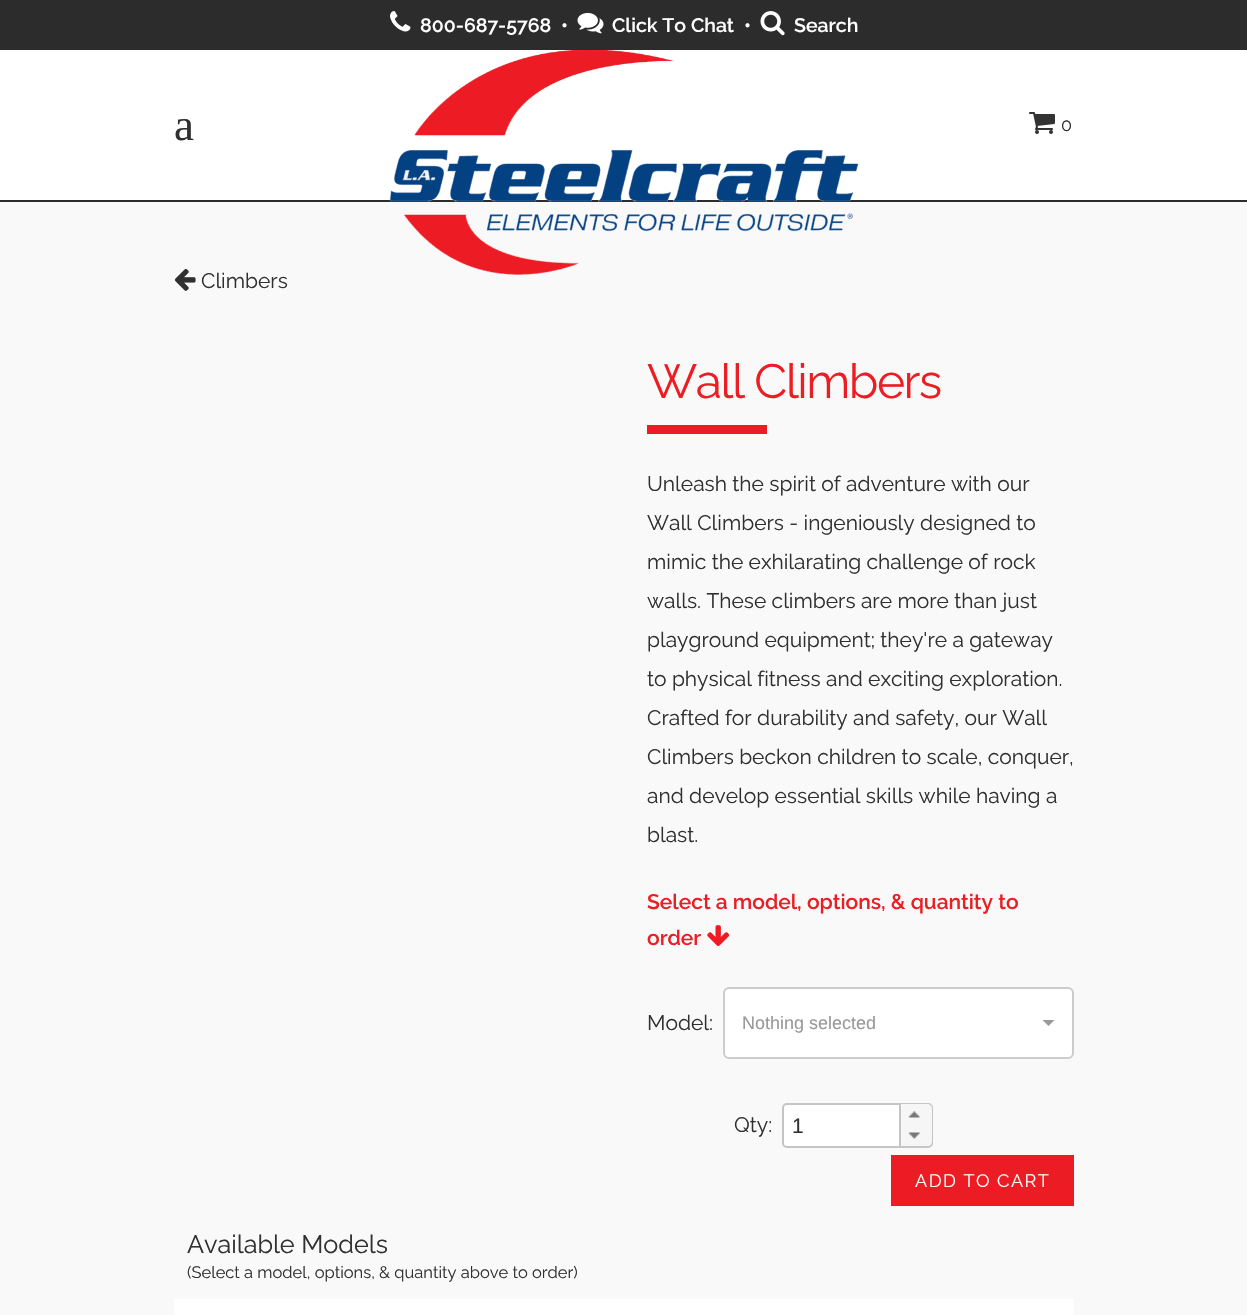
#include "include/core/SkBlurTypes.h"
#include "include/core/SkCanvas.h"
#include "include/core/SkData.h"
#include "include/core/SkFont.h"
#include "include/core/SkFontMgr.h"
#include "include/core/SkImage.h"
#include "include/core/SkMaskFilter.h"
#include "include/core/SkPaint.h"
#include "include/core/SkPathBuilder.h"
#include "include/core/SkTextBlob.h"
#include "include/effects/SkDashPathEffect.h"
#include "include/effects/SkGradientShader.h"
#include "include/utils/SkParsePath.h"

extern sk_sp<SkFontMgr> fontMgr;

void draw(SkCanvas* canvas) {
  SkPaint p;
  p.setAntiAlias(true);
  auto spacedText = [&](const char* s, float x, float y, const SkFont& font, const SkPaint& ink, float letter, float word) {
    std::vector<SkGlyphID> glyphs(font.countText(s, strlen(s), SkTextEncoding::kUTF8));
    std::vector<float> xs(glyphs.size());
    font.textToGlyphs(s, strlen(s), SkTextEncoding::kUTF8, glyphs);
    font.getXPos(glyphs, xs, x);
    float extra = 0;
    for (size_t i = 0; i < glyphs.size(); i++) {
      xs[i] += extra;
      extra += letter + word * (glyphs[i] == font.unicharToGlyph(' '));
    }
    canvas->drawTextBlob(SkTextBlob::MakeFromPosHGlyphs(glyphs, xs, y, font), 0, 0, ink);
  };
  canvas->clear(SK_ColorWHITE);
  p.setColor(SkColorSetRGB(44, 44, 44));
  canvas->drawRect(SkRect::MakeLTRB(0, 0, 1247, 50), p);
  canvas->drawImageRect(SkImages::DeferredFromEncodedData(SkData::MakeFromFileName("images/1.png")), SkRect::MakeLTRB(390, 11, 411, 32), SkSamplingOptions());
  canvas->drawImageRect(SkImages::DeferredFromEncodedData(SkData::MakeFromFileName("images/2.png")), SkRect::MakeLTRB(577, 12, 604, 34), SkSamplingOptions());
  canvas->drawImageRect(SkImages::DeferredFromEncodedData(SkData::MakeFromFileName("images/3.png")), SkRect::MakeLTRB(760, 11, 785, 36), SkSamplingOptions());
  canvas->drawRect(SkRect::MakeLTRB(0, 200, 1247, 202), p);
  p.setColor(SkColorSetRGB(249, 249, 249));
  canvas->drawRect(SkRect::MakeLTRB(0, 202, 1247, 1315), p);
  canvas->drawImageRect(SkImages::DeferredFromEncodedData(SkData::MakeFromFileName("images/4.png")), SkRect::MakeLTRB(389, 50, 859, 275), SkSamplingOptions());
  canvas->drawImageRect(SkImages::DeferredFromEncodedData(SkData::MakeFromFileName("images/5.png")), SkRect::MakeLTRB(1029, 112, 1055, 134), SkSamplingOptions());
  canvas->drawImageRect(SkImages::DeferredFromEncodedData(SkData::MakeFromFileName("images/6.png")), SkRect::MakeLTRB(174, 269, 196, 291), SkSamplingOptions());
  p.setColor(SkColorSetRGB(237, 28, 36));
  canvas->drawRect(SkRect::MakeLTRB(647, 425, 767, 434), p);
  canvas->drawImageRect(SkImages::DeferredFromEncodedData(SkData::MakeFromFileName("images/7.png")), SkRect::MakeLTRB(707, 925, 730, 946), SkSamplingOptions());
  p.setColor(SK_ColorWHITE);
  canvas->drawRoundRect(SkRect::MakeLTRB(724, 988, 1073, 1058), 5, 5, p);
  p.setStyle(SkPaint::kStroke_Style);
  p.setStrokeWidth(2);
  p.setColor(SkColorSetRGB(204, 204, 204));
  canvas->drawRoundRect(SkRect::MakeLTRB(724, 988, 1073, 1058), 5, 5, p);
  p.setStyle(SkPaint::kFill_Style);
  p.setColor(SkColorSetRGB(153, 153, 153));
  canvas->drawPath(SkPathBuilder().moveTo(1042.5f, 1020).lineTo(1054.5f, 1020).lineTo(1048.5f, 1026).close().detach(), p);
  p.setColor(SK_ColorWHITE);
  canvas->drawRoundRect(SkRect::MakeLTRB(783, 1104, 932, 1147), 4, 4, p);
  p.setStyle(SkPaint::kStroke_Style);
  p.setColor(SkColorSetRGB(197, 197, 197));
  canvas->drawRoundRect(SkRect::MakeLTRB(783, 1104, 932, 1147), 4, 4, p);
  p.setStyle(SkPaint::kFill_Style);
  p.setColor(SkColorSetRGB(246, 246, 246));
  canvas->drawPath(SkPathBuilder().moveTo(899, 1104).lineTo(927, 1104).cubicTo(930, 1104, 932, 1106, 932, 1109).lineTo(932, 1125).lineTo(899, 1125).close().detach(), p);
  p.setColor(SkColorSetRGB(197, 197, 197));
  canvas->drawRect(SkRect::MakeLTRB(899, 1104, 901, 1125), p);
  canvas->drawImageRect(SkImages::DeferredFromEncodedData(SkData::MakeFromFileName("images/8.png")), SkRect::MakeLTRB(908, 1111, 920, 1118), SkSamplingOptions());
  p.setColor(SkColorSetRGB(246, 246, 246));
  canvas->drawPath(SkPathBuilder().moveTo(899, 1125).lineTo(932, 1125).lineTo(932, 1141).cubicTo(932, 1144, 930, 1146, 927, 1146).lineTo(899, 1146).close().detach(), p);
  p.setColor(SkColorSetRGB(197, 197, 197));
  canvas->drawRect(SkRect::MakeLTRB(899, 1125, 901, 1146), p);
  canvas->drawImageRect(SkImages::DeferredFromEncodedData(SkData::MakeFromFileName("images/9.png")), SkRect::MakeLTRB(908, 1132, 920, 1139), SkSamplingOptions());
  p.setColor(SkColorSetRGB(236, 28, 36));
  canvas->drawRect(SkRect::MakeLTRB(891, 1155, 1074, 1206), p);
  p.setColor(SK_ColorWHITE);
  canvas->drawRect(SkRect::MakeLTRB(174, 1299, 1074, 1315), p);
  SkFont font1(fontMgr->matchFamilyStyle("Raleway", SkFontStyle(600, SkFontStyle::kNormal_Width, SkFontStyle::kUpright_Slant)), 19.5f);
  font1.setSubpixel(true);
  canvas->drawString("800-687-5768  •", 420, 32, font1, p);
  canvas->drawString("Click To Chat", 612, 32, font1, p);
  canvas->drawString("•", 744, 32, font1, p);
  canvas->drawString("Search", 794, 32, font1, p);
  SkFont font2(fontMgr->matchFamilyStyle("Liberation Serif", SkFontStyle::Normal()), 45);
  font2.setSubpixel(true);
  p.setColor(SkColorSetRGB(48, 48, 48));
  canvas->drawString("a", 174, 140, font2, p);
  SkFont font3(fontMgr->matchFamilyStyle("Raleway", SkFontStyle::Normal()), 18);
  font3.setSubpixel(true);
  canvas->drawString("0", 1061, 131, font3, p);
  SkFont font4(fontMgr->matchFamilyStyle("Raleway", SkFontStyle::Normal()), 21);
  font4.setSubpixel(true);
  canvas->drawString("Climbers", 201, 288, font4, p);
  SkFont font5(fontMgr->matchFamilyStyle("Raleway", SkFontStyle::Normal()), 48);
  font5.setSubpixel(true);
  p.setColor(SkColorSetRGB(237, 29, 36));
  spacedText("Wall Climbers", 647, 398, font5, p, -1.5f, 0);
  p.setColor(SkColorSetRGB(48, 48, 48));
  canvas->drawString("Unleash the spirit of adventure with our", 647, 491, font4, p);
  canvas->drawString("Wall Climbers - ingeniously designed to", 647, 530, font4, p);
  canvas->drawString("mimic the exhilarating challenge of rock", 647, 569, font4, p);
  canvas->drawString("walls. These climbers are more than just", 647, 608, font4, p);
  canvas->drawString("playground equipment; they're a gateway", 647, 647, font4, p);
  canvas->drawString("to physical fitness and exciting exploration.", 647, 686, font4, p);
  canvas->drawString("Crafted for durability and safety, our Wall", 647, 725, font4, p);
  canvas->drawString("Climbers beckon children to scale, conquer,", 647, 764, font4, p);
  canvas->drawString("and develop essential skills while having a", 647, 803, font4, p);
  canvas->drawString("blast.", 647, 842, font4, p);
  SkFont font6(fontMgr->matchFamilyStyle("Raleway", SkFontStyle(600, SkFontStyle::kNormal_Width, SkFontStyle::kUpright_Slant)), 21);
  font6.setSubpixel(true);
  p.setColor(SkColorSetRGB(237, 29, 36));
  canvas->drawString("Select a model, options, & quantity to", 647, 909, font6, p);
  canvas->drawString("order", 647, 945, font6, p);
  p.setColor(SkColorSetRGB(48, 48, 48));
  canvas->drawString("Model:", 647, 1030, font4, p);
  SkFont font7(fontMgr->matchFamilyStyle("Liberation Sans", SkFontStyle::Normal()), 18);
  font7.setSubpixel(true);
  p.setColor(SkColorSetRGB(153, 153, 153));
  canvas->drawString("Nothing selected", 742, 1029, font7, p);
  p.setColor(SkColorSetRGB(48, 48, 48));
  canvas->drawString("Qty:", 734, 1132, font4, p);
  SkFont font8(fontMgr->matchFamilyStyle("Liberation Sans", SkFontStyle::Normal()), 21);
  font8.setSubpixel(true);
  canvas->drawString("1", 792, 1133, font8, p);
  p.setColor(SK_ColorWHITE);
  spacedText("ADD TO CART", 915, 1187, font3, p, 1.5f, 0);
  SkFont font9(fontMgr->matchFamilyStyle("Raleway", SkFontStyle::Normal()), 25.25f);
  font9.setSubpixel(true);
  p.setColor(SkColorSetRGB(48, 48, 48));
  canvas->drawString("Available Models", 187, 1253, font9, p);
  SkFont font10(fontMgr->matchFamilyStyle("Raleway", SkFontStyle::Normal()), 16.5f);
  font10.setSubpixel(true);
  canvas->drawString("(Select a model, options, & quantity above to order)", 187, 1278, font10, p);
}
